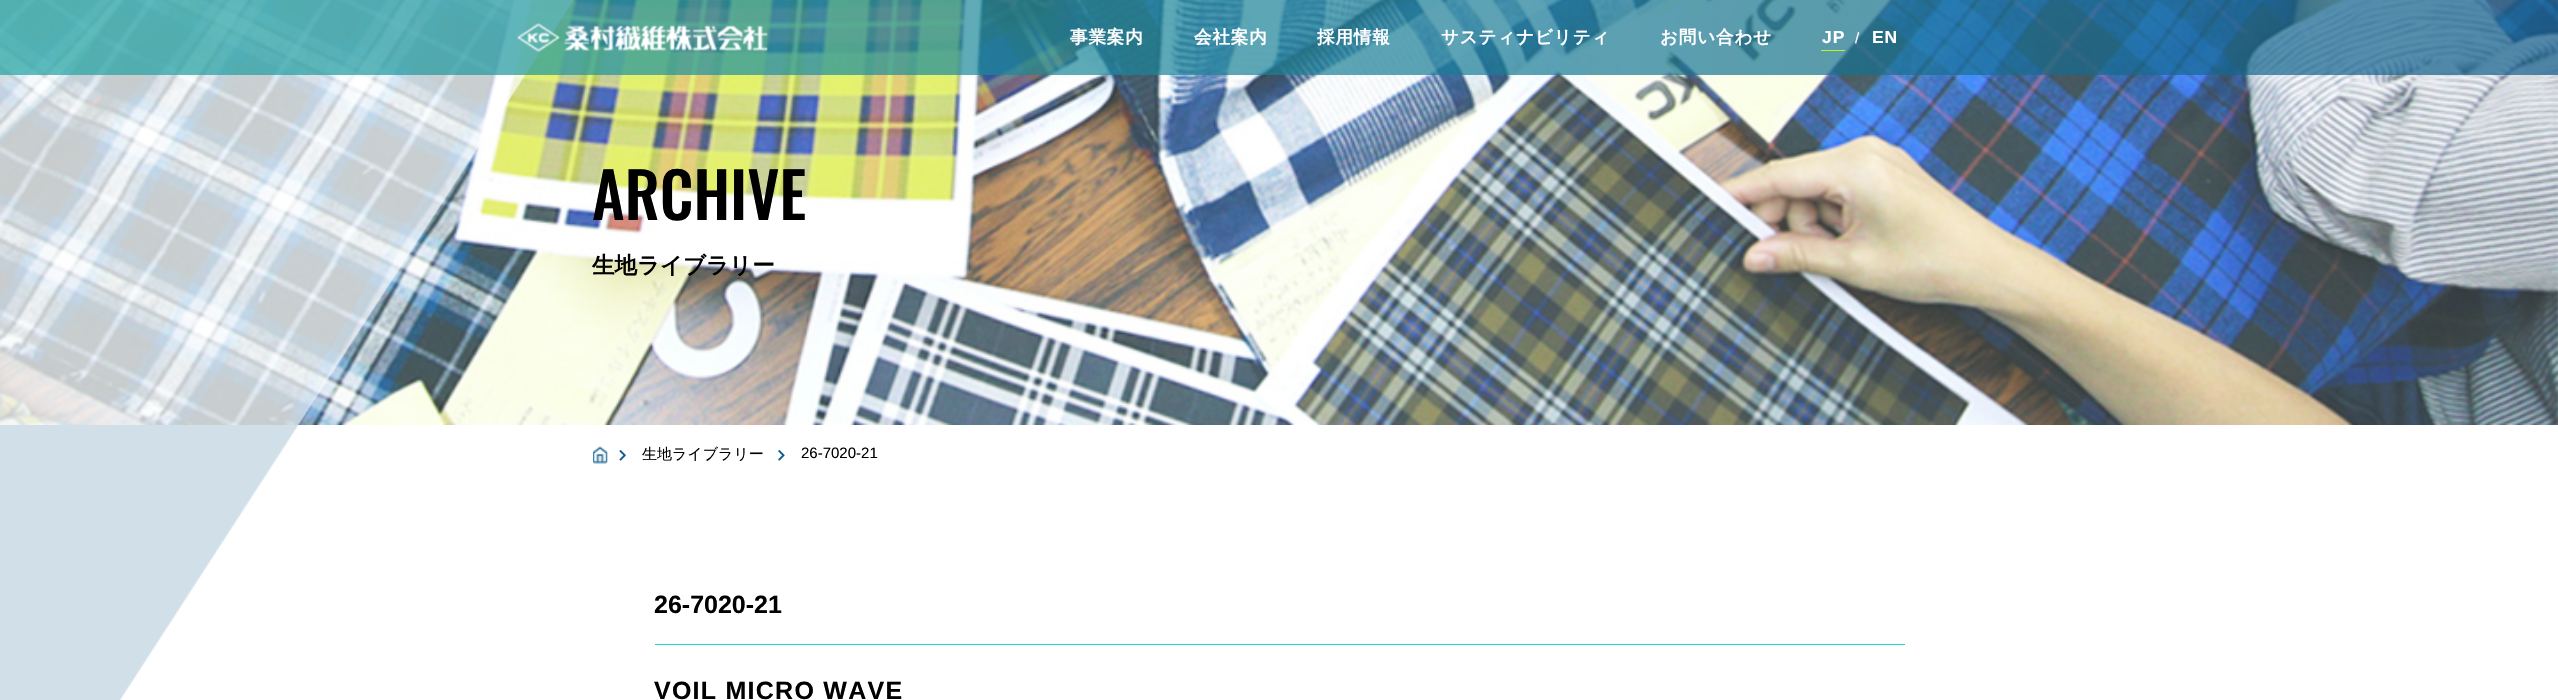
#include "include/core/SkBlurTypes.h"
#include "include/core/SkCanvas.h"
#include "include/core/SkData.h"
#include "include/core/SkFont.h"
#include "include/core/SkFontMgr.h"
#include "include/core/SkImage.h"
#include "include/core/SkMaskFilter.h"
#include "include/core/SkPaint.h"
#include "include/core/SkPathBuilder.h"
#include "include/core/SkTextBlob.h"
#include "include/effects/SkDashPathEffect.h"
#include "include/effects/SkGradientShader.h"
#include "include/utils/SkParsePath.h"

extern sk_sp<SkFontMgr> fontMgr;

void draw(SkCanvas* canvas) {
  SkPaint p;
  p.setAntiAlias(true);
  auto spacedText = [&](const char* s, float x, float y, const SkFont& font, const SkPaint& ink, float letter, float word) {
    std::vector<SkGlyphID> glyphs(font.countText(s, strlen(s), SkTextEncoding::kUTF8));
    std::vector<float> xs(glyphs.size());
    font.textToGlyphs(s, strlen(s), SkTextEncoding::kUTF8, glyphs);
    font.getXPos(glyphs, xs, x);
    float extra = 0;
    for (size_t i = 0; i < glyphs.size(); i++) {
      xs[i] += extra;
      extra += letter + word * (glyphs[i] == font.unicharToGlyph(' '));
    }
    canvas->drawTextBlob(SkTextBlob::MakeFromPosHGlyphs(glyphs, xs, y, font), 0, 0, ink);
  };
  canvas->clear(SK_ColorWHITE);
  canvas->drawImageRect(SkImages::DeferredFromEncodedData(SkData::MakeFromFileName("images/2.png")), SkRect::MakeLTRB(0, 0, 2558, 425), SkSamplingOptions());
  canvas->drawImageRect(SkImages::DeferredFromEncodedData(SkData::MakeFromFileName("images/3.png")), SkRect::MakeLTRB(0, 0, 574, 425), SkSamplingOptions());
  {
    const SkColor colors[] = {SkColorSetARGB(179, 32, 164, 162), SkColorSetARGB(179, 18, 93, 140)};
    const float stops[] = {0, 1};
    const SkPoint ends[] = {{0, 38}, {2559, 37}};
    p.setShader(SkGradientShader::MakeLinear(ends, colors, stops, 2, SkTileMode::kClamp));
    p.setAlpha(255);
  }
  canvas->drawRect(SkRect::MakeLTRB(0, 0, 2558, 75), p);
  canvas->drawImageRect(SkImages::DeferredFromEncodedData(SkData::MakeFromFileName("images/1.png")), SkRect::MakeLTRB(517, 23, 768, 52), SkSamplingOptions());
  p.setShader(nullptr);
  p.setColor(SkColorSetRGB(197, 238, 43));
  canvas->drawRect(SkRect::MakeLTRB(1821, 50, 1845, 51), p);
  canvas->drawImageRect(SkImages::DeferredFromEncodedData(SkData::MakeFromFileName("images/4.png")), SkRect::MakeLTRB(0, 425, 299, 700), SkSamplingOptions());
  canvas->drawImageRect(SkImages::DeferredFromEncodedData(SkData::MakeFromFileName("images/5.png")), SkRect::MakeLTRB(593, 446, 608, 464), SkSamplingOptions());
  canvas->drawImageRect(SkImages::DeferredFromEncodedData(SkData::MakeFromFileName("images/6.png")), SkRect::MakeLTRB(619, 450, 626, 461), SkSamplingOptions());
  canvas->drawImageRect(SkImages::DeferredFromEncodedData(SkData::MakeFromFileName("images/7.png")), SkRect::MakeLTRB(778, 450, 785, 461), SkSamplingOptions());
  p.setColor(SkColorSetRGB(22, 217, 213));
  canvas->drawRect(SkRect::MakeLTRB(655, 644, 1905, 645), p);
  SkFont font1(fontMgr->matchFamilyStyle("WenQuanYi Zen Hei", SkFontStyle::Bold()), 17.5f);
  font1.setSubpixel(true);
  p.setColor(SK_ColorWHITE);
  spacedText("事業案内", 1070, 43, font1, p, 0.9f, 0);
  spacedText("会社案内", 1194, 43, font1, p, 0.9f, 0);
  spacedText("採⽤情報", 1317, 43, font1, p, 0.9f, 0);
  spacedText("サスティナビリティ", 1441, 43, font1, p, 0.9f, 0);
  spacedText("お問い合わせ", 1660, 43, font1, p, 0.9f, 0);
  SkFont font2(fontMgr->matchFamilyStyle("Liberation Sans", SkFontStyle::Bold()), 17.5f);
  font2.setSubpixel(true);
  spacedText("JP", 1822, 43, font2, p, 0.9f, 0);
  SkFont font3(fontMgr->matchFamilyStyle("Liberation Sans", SkFontStyle::Normal()), 15);
  font3.setSubpixel(true);
  canvas->drawString("/", 1855, 43, font3, p);
  spacedText("EN", 1872, 43, font2, p, 0.9f, 0);
  SkFont font4(fontMgr->matchFamilyStyle("Oswald", SkFontStyle(500, SkFontStyle::kNormal_Width, SkFontStyle::kUpright_Slant)), 62.5f);
  font4.setSubpixel(true);
  p.setColor(SK_ColorBLACK);
  canvas->drawString("ARCHIVE", 592, 220, font4, p);
  SkFont font5(fontMgr->matchFamilyStyle("WenQuanYi Zen Hei", SkFontStyle::Bold()), 22.5f);
  font5.setSubpixel(true);
  canvas->drawString("生地ライブラリー", 592, 273, font5, p);
  SkFont font6(fontMgr->matchFamilyStyle("WenQuanYi Zen Hei", SkFontStyle(500, SkFontStyle::kNormal_Width, SkFontStyle::kUpright_Slant)), 15);
  font6.setSubpixel(true);
  canvas->drawString("生地ライブラリー", 642, 459, font6, p);
  canvas->drawString("26-7020-21", 801, 458, font3, p);
  SkFont font7(fontMgr->matchFamilyStyle("Liberation Sans", SkFontStyle::Bold()), 25);
  font7.setSubpixel(true);
  canvas->drawString("26-7020-21", 654, 613, font7, p);
  spacedText("VOIL MICRO WAVE", 654, 699, font7, p, 1.25f, 0);
}
